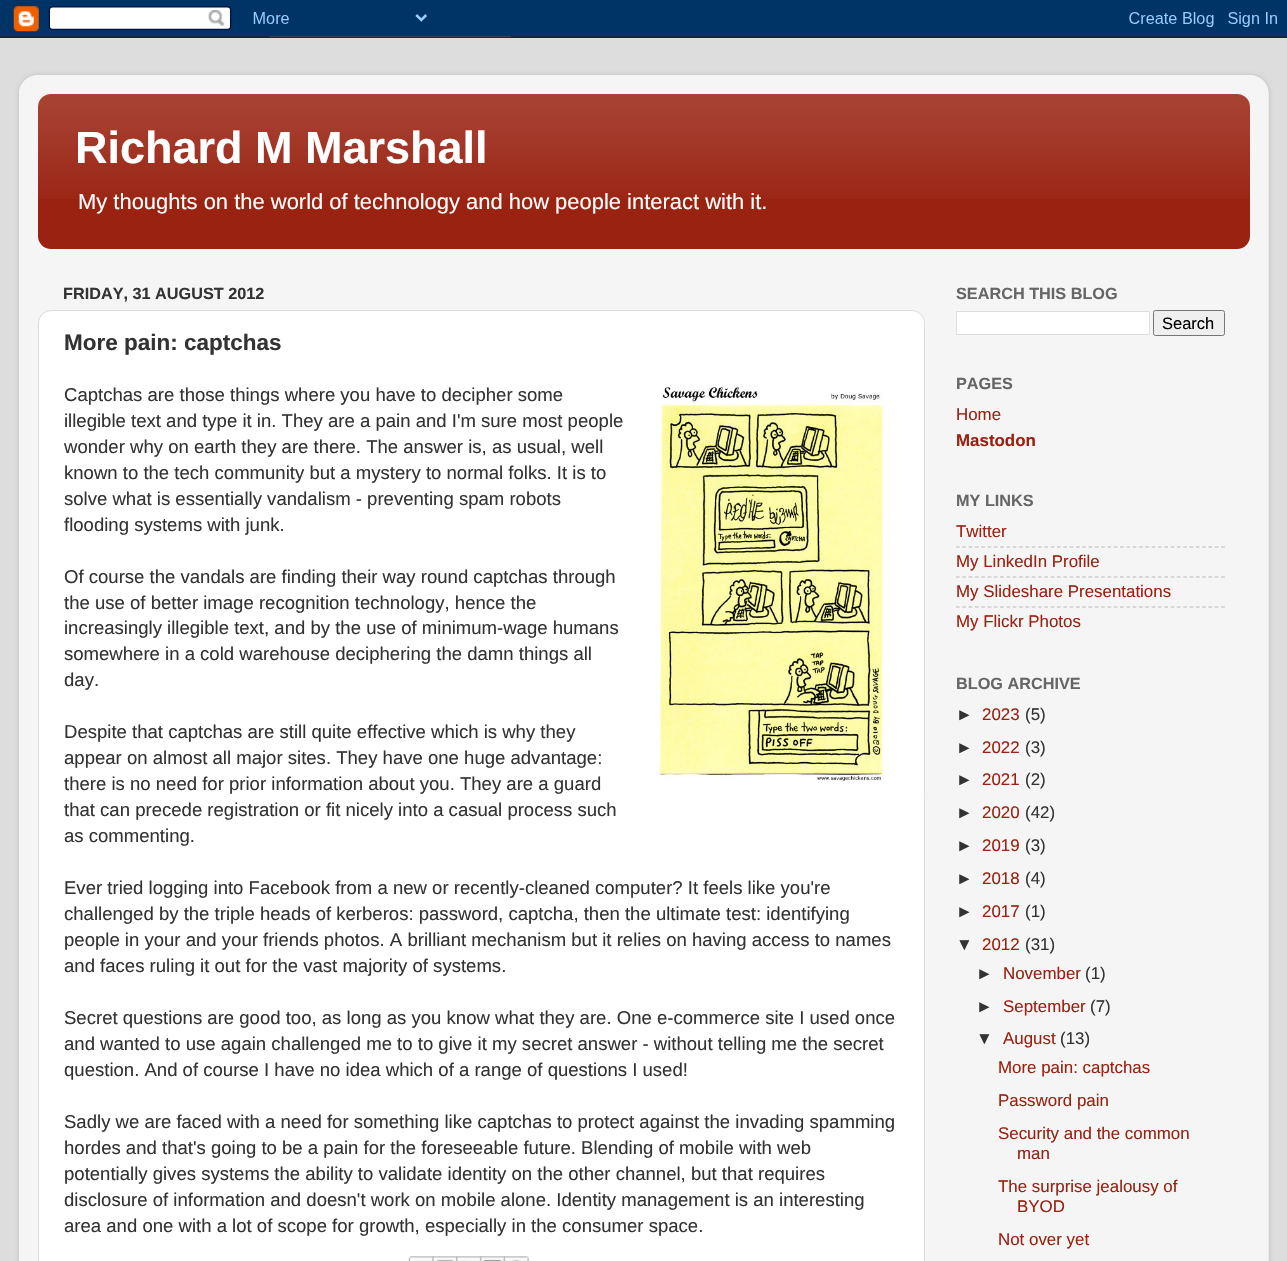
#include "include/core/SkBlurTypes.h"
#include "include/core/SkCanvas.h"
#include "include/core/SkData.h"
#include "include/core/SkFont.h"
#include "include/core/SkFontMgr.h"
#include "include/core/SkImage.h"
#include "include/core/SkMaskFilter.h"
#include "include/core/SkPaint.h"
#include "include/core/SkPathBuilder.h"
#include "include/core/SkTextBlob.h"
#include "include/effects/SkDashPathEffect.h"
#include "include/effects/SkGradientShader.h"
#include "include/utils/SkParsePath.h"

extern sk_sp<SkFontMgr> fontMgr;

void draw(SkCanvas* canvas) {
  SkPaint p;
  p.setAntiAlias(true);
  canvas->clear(SkColorSetRGB(221, 221, 221));
  canvas->drawImageRect(SkImages::DeferredFromEncodedData(SkData::MakeFromFileName("images/1.png")), SkRect::MakeLTRB(0, 0, 1287, 38), SkSamplingOptions());
  canvas->save();
  canvas->clipPath(SkPathBuilder(SkPathFillType::kEvenOdd).moveTo(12, 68).lineTo(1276, 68).lineTo(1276, 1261).lineTo(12, 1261).close().moveTo(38, 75).lineTo(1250, 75).cubicTo(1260.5f, 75, 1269, 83.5f, 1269, 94).lineTo(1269, 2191).cubicTo(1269, 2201.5f, 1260.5f, 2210, 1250, 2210).lineTo(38, 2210).cubicTo(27.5f, 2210, 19, 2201.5f, 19, 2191).lineTo(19, 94).cubicTo(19, 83.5f, 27.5f, 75, 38, 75).close().detach(), true);
  p.setColor(SkColorSetARGB(38, 0, 0, 0));
  p.setMaskFilter(SkMaskFilter::MakeBlur(kNormal_SkBlurStyle, 2));
  canvas->drawRoundRect(SkRect::MakeLTRB(19, 75, 1269, 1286), 19, 19, p);
  p.setMaskFilter(nullptr);
  canvas->restore();
  canvas->drawImageRect(SkImages::DeferredFromEncodedData(SkData::MakeFromFileName("images/2.png")), SkRect::MakeLTRB(19, 75, 1269, 1261), SkSamplingOptions());
  p.setColor(SkColorSetRGB(153, 34, 17));
  canvas->drawRoundRect(SkRect::MakeLTRB(38, 94, 1250, 249), 13, 13, p);
  canvas->drawImageRect(SkImages::DeferredFromEncodedData(SkData::MakeFromFileName("images/3.png")), SkRect::MakeLTRB(38, 94, 1250, 199), SkSamplingOptions());
  p.setColor(SK_ColorWHITE);
  canvas->drawRoundRect(SkRect::MakeLTRB(38.5f, 310.5f, 924.5f, 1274.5f), 12.5f, 12.5f, p);
  p.setStyle(SkPaint::kStroke_Style);
  p.setStrokeWidth(1);
  p.setColor(SkColorSetRGB(221, 221, 221));
  canvas->drawRoundRect(SkRect::MakeLTRB(38.5f, 310.5f, 924.5f, 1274.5f), 12.5f, 12.5f, p);
  canvas->drawImageRect(SkImages::DeferredFromEncodedData(SkData::MakeFromFileName("images/4.png")), SkRect::MakeLTRB(657, 384, 884, 782), SkSamplingOptions());
  canvas->drawImageRect(SkImages::DeferredFromEncodedData(SkData::MakeFromFileName("images/5.png")), SkRect::MakeLTRB(408, 1256, 434, 1261), SkSamplingOptions());
  canvas->drawImageRect(SkImages::DeferredFromEncodedData(SkData::MakeFromFileName("images/6.png")), SkRect::MakeLTRB(432, 1256, 458, 1261), SkSamplingOptions());
  canvas->drawImageRect(SkImages::DeferredFromEncodedData(SkData::MakeFromFileName("images/7.png")), SkRect::MakeLTRB(456, 1256, 482, 1261), SkSamplingOptions());
  canvas->drawImageRect(SkImages::DeferredFromEncodedData(SkData::MakeFromFileName("images/8.png")), SkRect::MakeLTRB(480, 1256, 505, 1261), SkSamplingOptions());
  canvas->drawImageRect(SkImages::DeferredFromEncodedData(SkData::MakeFromFileName("images/9.png")), SkRect::MakeLTRB(503, 1256, 529, 1261), SkSamplingOptions());
  p.setStyle(SkPaint::kFill_Style);
  p.setColor(SK_ColorWHITE);
  canvas->drawRect(SkRect::MakeLTRB(956.5f, 311.5f, 1149.5f, 334.5f), p);
  p.setStyle(SkPaint::kStroke_Style);
  p.setColor(SkColorSetRGB(221, 221, 221));
  canvas->drawRect(SkRect::MakeLTRB(956.5f, 311.5f, 1149.5f, 334.5f), p);
  p.setStyle(SkPaint::kFill_Style);
  p.setColor(SkColorSetRGB(239, 239, 239));
  canvas->drawRoundRect(SkRect::MakeLTRB(1153.5f, 310.5f, 1224.5f, 335.5f), 2, 2, p);
  p.setStyle(SkPaint::kStroke_Style);
  p.setColor(SkColorSetRGB(118, 118, 118));
  canvas->drawRoundRect(SkRect::MakeLTRB(1153.5f, 310.5f, 1224.5f, 335.5f), 2, 2, p);
  p.setStrokeWidth(1.2f);
  p.setColor(SkColorSetRGB(186, 186, 186));
  p.setPathEffect(SkDashPathEffect::Make({{3.75f, 2.56f}}, 0));
  canvas->drawPath(SkPathBuilder().moveTo(956, 547).lineTo(1225, 547).detach(), p);
  p.setPathEffect(nullptr);
  p.setPathEffect(SkDashPathEffect::Make({{3.75f, 2.56f}}, 0));
  canvas->drawPath(SkPathBuilder().moveTo(956, 577).lineTo(1225, 577).detach(), p);
  p.setPathEffect(nullptr);
  p.setPathEffect(SkDashPathEffect::Make({{3.75f, 2.56f}}, 0));
  canvas->drawPath(SkPathBuilder().moveTo(956, 607).lineTo(1225, 607).detach(), p);
  p.setPathEffect(nullptr);
  SkFont font1(fontMgr->matchFamilyStyle("Liberation Sans", SkFontStyle::Bold()), 45);
  font1.setSubpixel(true);
  p.setStyle(SkPaint::kFill_Style);
  p.setColor(SK_ColorWHITE);
  canvas->drawString("Richard M Marshall", 75, 163, font1, p);
  SkFont font2(fontMgr->matchFamilyStyle("Liberation Sans", SkFontStyle::Normal()), 21.95f);
  font2.setSubpixel(true);
  canvas->drawString("My thoughts on the world of technology and how people interact with it.", 78, 209, font2, p);
  SkFont font3(fontMgr->matchFamilyStyle("Liberation Sans", SkFontStyle::Bold()), 16.25f);
  font3.setSubpixel(true);
  p.setColor(SkColorSetRGB(51, 51, 51));
  canvas->drawString("FRIDAY, 31 AUGUST 2012", 63, 299, font3, p);
  SkFont font4(fontMgr->matchFamilyStyle("Liberation Sans", SkFontStyle::Bold()), 22.5f);
  font4.setSubpixel(true);
  canvas->drawString("More pain: captchas", 64, 350, font4, p);
  SkFont font5(fontMgr->matchFamilyStyle("Liberation Sans", SkFontStyle::Normal()), 18.55f);
  font5.setSubpixel(true);
  canvas->drawString("Captchas are those things where you have to decipher some", 64, 401, font5, p);
  canvas->drawString("illegible text and type it in. They are a pain and I'm sure most people", 64, 427, font5, p);
  canvas->drawString("wonder why on earth they are there. The answer is, as usual, well", 64, 453, font5, p);
  canvas->drawString("known to the tech community but a mystery to normal folks. It is to", 64, 479, font5, p);
  canvas->drawString("solve what is essentially vandalism - preventing spam robots", 64, 505, font5, p);
  canvas->drawString("flooding systems with junk.", 64, 531, font5, p);
  canvas->drawString("Of course the vandals are finding their way round captchas through", 64, 583, font5, p);
  canvas->drawString("the use of better image recognition technology, hence the", 64, 609, font5, p);
  canvas->drawString("increasingly illegible text, and by the use of minimum-wage humans", 64, 634, font5, p);
  canvas->drawString("somewhere in a cold warehouse deciphering the damn things all", 64, 660, font5, p);
  canvas->drawString("day.", 64, 686, font5, p);
  canvas->drawString("Despite that captchas are still quite effective which is why they", 64, 738, font5, p);
  canvas->drawString("appear on almost all major sites. They have one huge advantage:", 64, 764, font5, p);
  canvas->drawString("there is no need for prior information about you. They are a guard", 64, 790, font5, p);
  canvas->drawString("that can precede registration or fit nicely into a casual process such", 64, 816, font5, p);
  canvas->drawString("as commenting.", 64, 842, font5, p);
  canvas->drawString("Ever tried logging into Facebook from a new or recently-cleaned computer? It feels like you're", 64, 894, font5, p);
  canvas->drawString("challenged by the triple heads of kerberos: password, captcha, then the ultimate test: identifying", 64, 920, font5, p);
  canvas->drawString("people in your and your friends photos. A brilliant mechanism but it relies on having access to names", 64, 946, font5, p);
  canvas->drawString("and faces ruling it out for the vast majority of systems.", 64, 972, font5, p);
  canvas->drawString("Secret questions are good too, as long as you know what they are. One e-commerce site I used once", 64, 1024, font5, p);
  canvas->drawString("and wanted to use again challenged me to to give it my secret answer - without telling me the secret", 64, 1050, font5, p);
  canvas->drawString("question. And of course I have no idea which of a range of questions I used!", 64, 1076, font5, p);
  canvas->drawString("Sadly we are faced with a need for something like captchas to protect against the invading spamming", 64, 1128, font5, p);
  canvas->drawString("hordes and that's going to be a pain for the foreseeable future. Blending of mobile with web", 64, 1154, font5, p);
  canvas->drawString("potentially gives systems the ability to validate identity on the other channel, but that requires", 64, 1180, font5, p);
  canvas->drawString("disclosure of information and doesn't work on mobile alone. Identity management is an interesting", 64, 1206, font5, p);
  canvas->drawString("area and one with a lot of scope for growth, especially in the consumer space.", 64, 1232, font5, p);
  p.setColor(SkColorSetRGB(102, 102, 102));
  canvas->drawString("SEARCH THIS BLOG", 956, 299, font3, p);
  SkFont font6(fontMgr->matchFamilyStyle("Liberation Sans", SkFontStyle::Normal()), 16.5f);
  font6.setSubpixel(true);
  p.setColor(SK_ColorBLACK);
  canvas->drawString("Search", 1162, 329, font6, p);
  p.setColor(SkColorSetRGB(102, 102, 102));
  canvas->drawString("PAGES", 956, 389, font3, p);
  SkFont font7(fontMgr->matchFamilyStyle("Liberation Sans", SkFontStyle::Normal()), 16.9f);
  font7.setSubpixel(true);
  p.setColor(SkColorSetRGB(153, 34, 17));
  canvas->drawString("Home", 956, 420, font7, p);
  SkFont font8(fontMgr->matchFamilyStyle("Liberation Sans", SkFontStyle::Bold()), 16.9f);
  font8.setSubpixel(true);
  canvas->drawString("Mastodon", 956, 446, font8, p);
  p.setColor(SkColorSetRGB(102, 102, 102));
  canvas->drawString("MY LINKS", 956, 506, font3, p);
  p.setColor(SkColorSetRGB(153, 34, 17));
  canvas->drawString("Twitter", 956, 537, font7, p);
  canvas->drawString("My LinkedIn Profile", 956, 567, font7, p);
  canvas->drawString("My Slideshare Presentations", 956, 597, font7, p);
  canvas->drawString("My Flickr Photos", 956, 627, font7, p);
  p.setColor(SkColorSetRGB(102, 102, 102));
  canvas->drawString("BLOG ARCHIVE", 956, 689, font3, p);
  p.setColor(SkColorSetRGB(51, 51, 51));
  canvas->drawString("►", 956, 720, font7, p);
  p.setColor(SkColorSetRGB(153, 34, 17));
  canvas->drawString("2023", 982, 720, font7, p);
  p.setColor(SkColorSetRGB(51, 51, 51));
  canvas->drawString("(5)", 1025, 720, font7, p);
  canvas->drawString("►", 956, 753, font7, p);
  p.setColor(SkColorSetRGB(153, 34, 17));
  canvas->drawString("2022", 982, 753, font7, p);
  p.setColor(SkColorSetRGB(51, 51, 51));
  canvas->drawString("(3)", 1025, 753, font7, p);
  canvas->drawString("►", 956, 785, font7, p);
  p.setColor(SkColorSetRGB(153, 34, 17));
  canvas->drawString("2021", 982, 785, font7, p);
  p.setColor(SkColorSetRGB(51, 51, 51));
  canvas->drawString("(2)", 1025, 785, font7, p);
  canvas->drawString("►", 956, 818, font7, p);
  p.setColor(SkColorSetRGB(153, 34, 17));
  canvas->drawString("2020", 982, 818, font7, p);
  p.setColor(SkColorSetRGB(51, 51, 51));
  canvas->drawString("(42)", 1025, 818, font7, p);
  canvas->drawString("►", 956, 851, font7, p);
  p.setColor(SkColorSetRGB(153, 34, 17));
  canvas->drawString("2019", 982, 851, font7, p);
  p.setColor(SkColorSetRGB(51, 51, 51));
  canvas->drawString("(3)", 1025, 851, font7, p);
  canvas->drawString("►", 956, 884, font7, p);
  p.setColor(SkColorSetRGB(153, 34, 17));
  canvas->drawString("2018", 982, 884, font7, p);
  p.setColor(SkColorSetRGB(51, 51, 51));
  canvas->drawString("(4)", 1025, 884, font7, p);
  canvas->drawString("►", 956, 917, font7, p);
  p.setColor(SkColorSetRGB(153, 34, 17));
  canvas->drawString("2017", 982, 917, font7, p);
  p.setColor(SkColorSetRGB(51, 51, 51));
  canvas->drawString("(1)", 1025, 917, font7, p);
  canvas->drawString("▼", 956, 950, font7, p);
  p.setColor(SkColorSetRGB(153, 34, 17));
  canvas->drawString("2012", 982, 950, font7, p);
  p.setColor(SkColorSetRGB(51, 51, 51));
  canvas->drawString("(31)", 1025, 950, font7, p);
  canvas->drawString("►", 976, 979, font7, p);
  p.setColor(SkColorSetRGB(153, 34, 17));
  canvas->drawString("November", 1003, 979, font7, p);
  p.setColor(SkColorSetRGB(51, 51, 51));
  canvas->drawString("(1)", 1085, 979, font7, p);
  canvas->drawString("►", 976, 1012, font7, p);
  p.setColor(SkColorSetRGB(153, 34, 17));
  canvas->drawString("September", 1003, 1012, font7, p);
  p.setColor(SkColorSetRGB(51, 51, 51));
  canvas->drawString("(7)", 1090, 1012, font7, p);
  canvas->drawString("▼", 976, 1044, font7, p);
  p.setColor(SkColorSetRGB(153, 34, 17));
  canvas->drawString("August", 1003, 1044, font7, p);
  p.setColor(SkColorSetRGB(51, 51, 51));
  canvas->drawString("(13)", 1060, 1044, font7, p);
  p.setColor(SkColorSetRGB(153, 34, 17));
  canvas->drawString("More pain: captchas", 998, 1073, font7, p);
  canvas->drawString("Password pain", 998, 1106, font7, p);
  canvas->drawString("Security and the common", 998, 1139, font7, p);
  canvas->drawString("man", 1017, 1159, font7, p);
  canvas->drawString("The surprise jealousy of", 998, 1192, font7, p);
  canvas->drawString("BYOD", 1017, 1212, font7, p);
  canvas->drawString("Not over yet", 998, 1245, font7, p);
}
